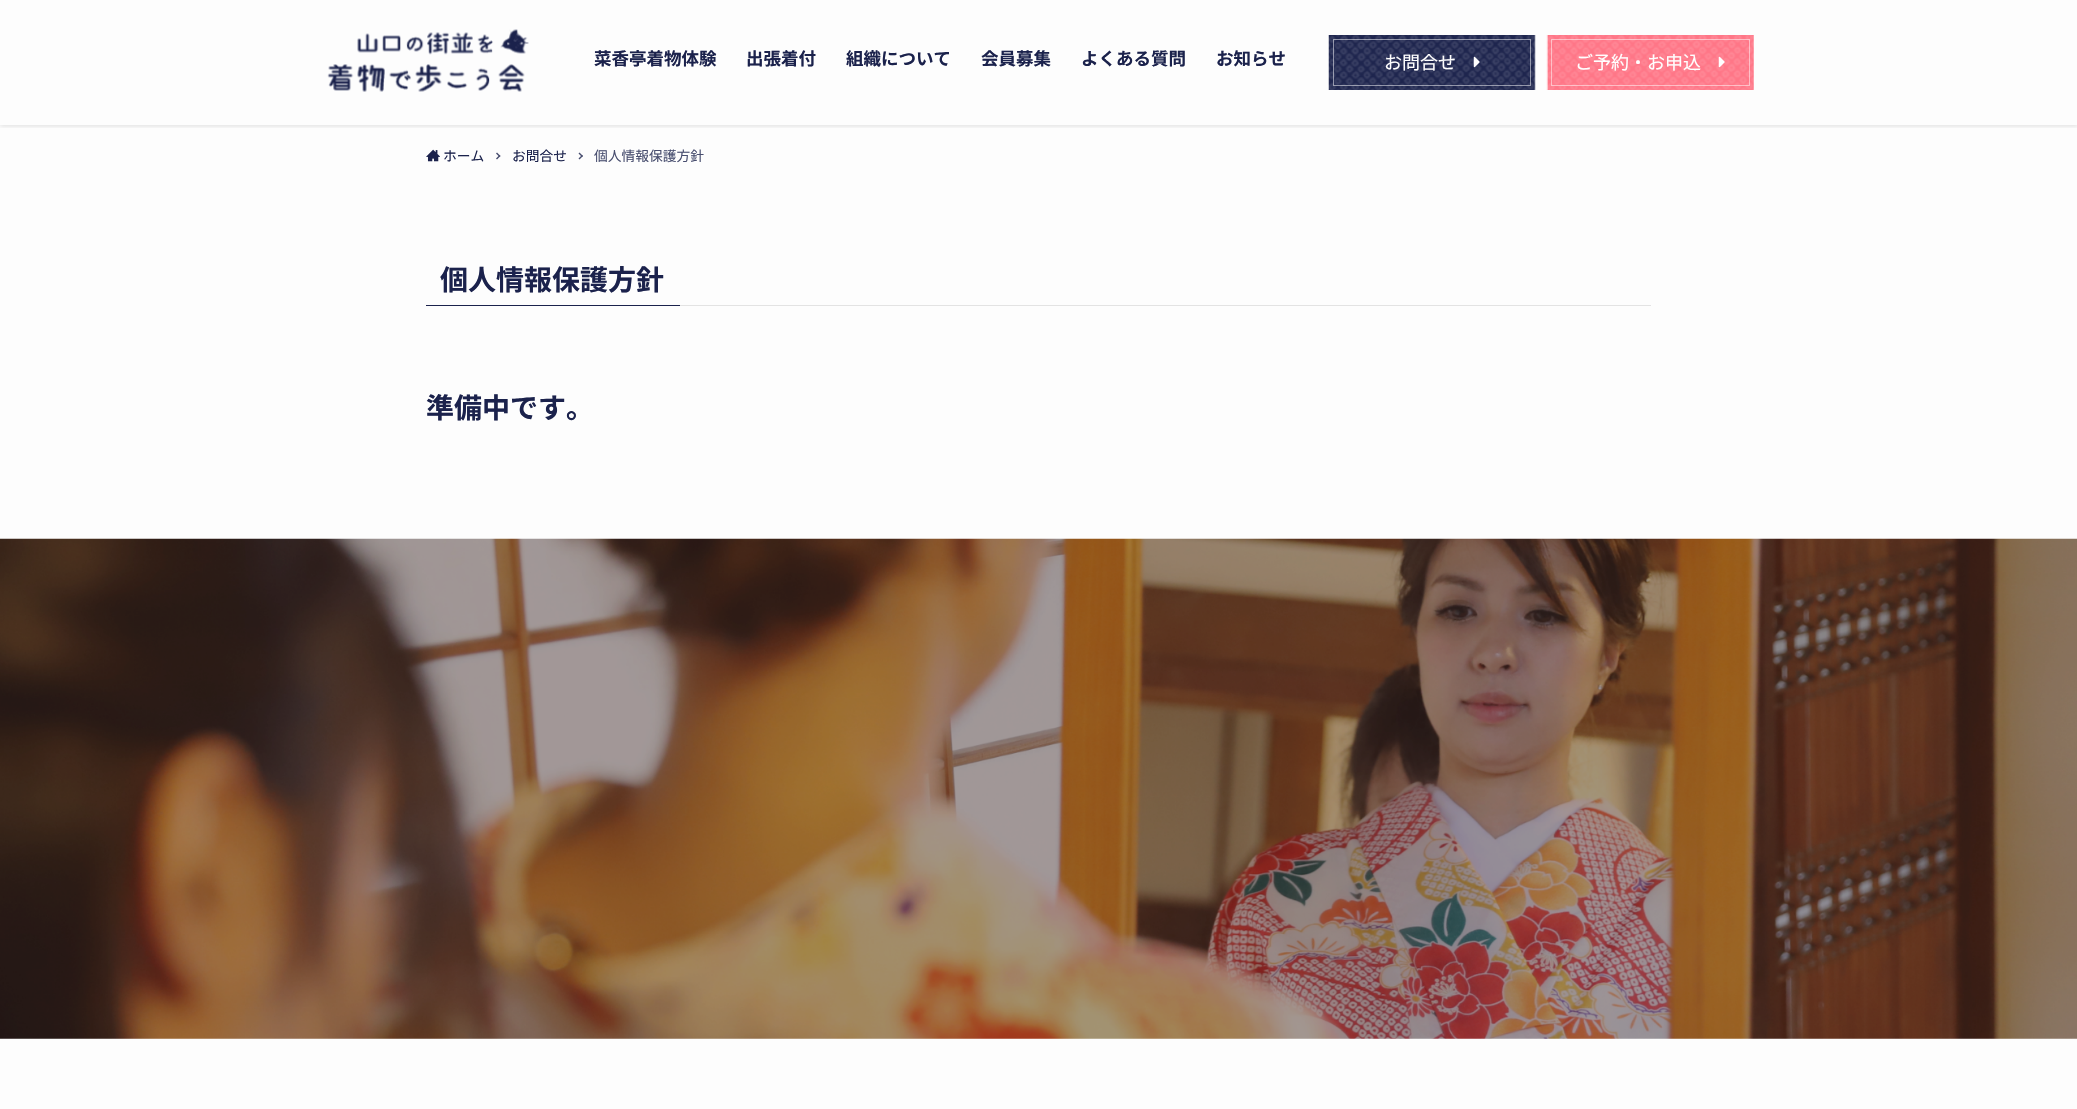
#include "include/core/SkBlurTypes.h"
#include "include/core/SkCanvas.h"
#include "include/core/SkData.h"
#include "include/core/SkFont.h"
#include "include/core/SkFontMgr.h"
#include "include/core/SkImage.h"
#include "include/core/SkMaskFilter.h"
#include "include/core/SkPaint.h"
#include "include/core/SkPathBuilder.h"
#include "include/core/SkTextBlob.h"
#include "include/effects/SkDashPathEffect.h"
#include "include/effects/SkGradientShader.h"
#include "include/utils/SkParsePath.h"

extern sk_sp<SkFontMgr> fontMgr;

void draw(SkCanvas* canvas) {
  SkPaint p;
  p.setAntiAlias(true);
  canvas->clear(SkColorSetRGB(253, 253, 253));
  canvas->save();
  canvas->clipRect(SkRect::MakeLTRB(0, 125, 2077, 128));
  p.setColor(SkColorSetARGB(31, 0, 0, 0));
  p.setMaskFilter(SkMaskFilter::MakeBlur(kNormal_SkBlurStyle, 2.5f));
  canvas->drawRect(SkRect::MakeLTRB(0, 1, 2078, 126), p);
  p.setMaskFilter(nullptr);
  canvas->restore();
  canvas->drawImageRect(SkImages::DeferredFromEncodedData(SkData::MakeFromFileName("images/1.png")), SkRect::MakeLTRB(327, 29, 529, 92), SkSamplingOptions());
  canvas->drawImageRect(SkImages::DeferredFromEncodedData(SkData::MakeFromFileName("images/2.png")), SkRect::MakeLTRB(1328, 35, 1536, 90), SkSamplingOptions());
  p.setStyle(SkPaint::kStroke_Style);
  p.setStrokeWidth(1);
  p.setColor(SkColorSetARGB(128, 255, 255, 255));
  canvas->drawRect(SkRect::MakeLTRB(1333.5f, 39.5f, 1530.5f, 85.5f), p);
  canvas->drawImageRect(SkImages::DeferredFromEncodedData(SkData::MakeFromFileName("images/3.png")), SkRect::MakeLTRB(1473, 56, 1480, 68), SkSamplingOptions());
  canvas->drawImageRect(SkImages::DeferredFromEncodedData(SkData::MakeFromFileName("images/4.png")), SkRect::MakeLTRB(1546, 35, 1754, 90), SkSamplingOptions());
  canvas->drawRect(SkRect::MakeLTRB(1551.5f, 39.5f, 1749.5f, 85.5f), p);
  canvas->drawImageRect(SkImages::DeferredFromEncodedData(SkData::MakeFromFileName("images/5.png")), SkRect::MakeLTRB(1718, 56, 1725, 68), SkSamplingOptions());
  canvas->drawImageRect(SkImages::DeferredFromEncodedData(SkData::MakeFromFileName("images/6.png")), SkRect::MakeLTRB(426, 149, 440, 162), SkSamplingOptions());
  p.setStyle(SkPaint::kFill_Style);
  p.setColor(SkColorSetRGB(72, 78, 111));
  canvas->drawPath(SkPathBuilder().moveTo(497, 152.5f).lineTo(500.5f, 156).lineTo(499.5f, 157).lineTo(496, 153.5f).close().detach(), p);
  canvas->drawPath(SkPathBuilder().moveTo(499.5f, 155).lineTo(500.5f, 156).lineTo(497, 159.5f).lineTo(496, 158.5f).close().detach(), p);
  canvas->drawPath(SkPathBuilder().moveTo(579.5f, 152.5f).lineTo(583, 156).lineTo(582, 157).lineTo(578.5f, 153.5f).close().detach(), p);
  canvas->drawPath(SkPathBuilder().moveTo(582, 155).lineTo(583, 156).lineTo(579.5f, 159.5f).lineTo(578.5f, 158.5f).close().detach(), p);
  p.setColor(SkColorSetRGB(227, 227, 227));
  canvas->drawRect(SkRect::MakeLTRB(680, 305, 1651, 306), p);
  p.setColor(SkColorSetRGB(27, 34, 76));
  canvas->drawRect(SkRect::MakeLTRB(426, 305, 680, 306), p);
  canvas->drawImageRect(SkImages::DeferredFromEncodedData(SkData::MakeFromFileName("images/7.png")), SkRect::MakeLTRB(0, 538, 2077, 1039), SkSamplingOptions());
  SkFont font1(fontMgr->matchFamilyStyle("Noto Sans JP", SkFontStyle::Bold()), 17.5f);
  font1.setSubpixel(true);
  canvas->drawString("菜香亭着物体験", 594, 65, font1, p);
  canvas->drawString("出張着付", 746, 65, font1, p);
  canvas->drawString("組織について", 846, 65, font1, p);
  canvas->drawString("会員募集", 981, 65, font1, p);
  canvas->drawString("よくある質問", 1081, 65, font1, p);
  canvas->drawString("お知らせ", 1216, 65, font1, p);
  SkFont font2(fontMgr->matchFamilyStyle("Noto Sans JP", SkFontStyle::Normal()), 18);
  font2.setSubpixel(true);
  p.setColor(SK_ColorWHITE);
  canvas->drawString("お問合せ", 1384, 69, font2, p);
  canvas->drawString("ご予約・お申込", 1575, 69, font2, p);
  SkFont font3(fontMgr->matchFamilyStyle("Noto Sans JP", SkFontStyle::Normal()), 13.75f);
  font3.setSubpixel(true);
  p.setColor(SkColorSetRGB(27, 34, 76));
  canvas->drawString("ホーム", 443, 161, font3, p);
  canvas->drawString("お問合せ", 512, 161, font3, p);
  p.setColor(SkColorSetRGB(72, 78, 111));
  canvas->drawString("個人情報保護方針", 594, 161, font3, p);
  SkFont font4(fontMgr->matchFamilyStyle("Noto Sans JP", SkFontStyle::Bold()), 28);
  font4.setSubpixel(true);
  p.setColor(SkColorSetRGB(27, 34, 76));
  canvas->drawString("個人情報保護方針", 440, 290, font4, p);
  canvas->drawString("準備中です。", 426, 418, font4, p);
}
